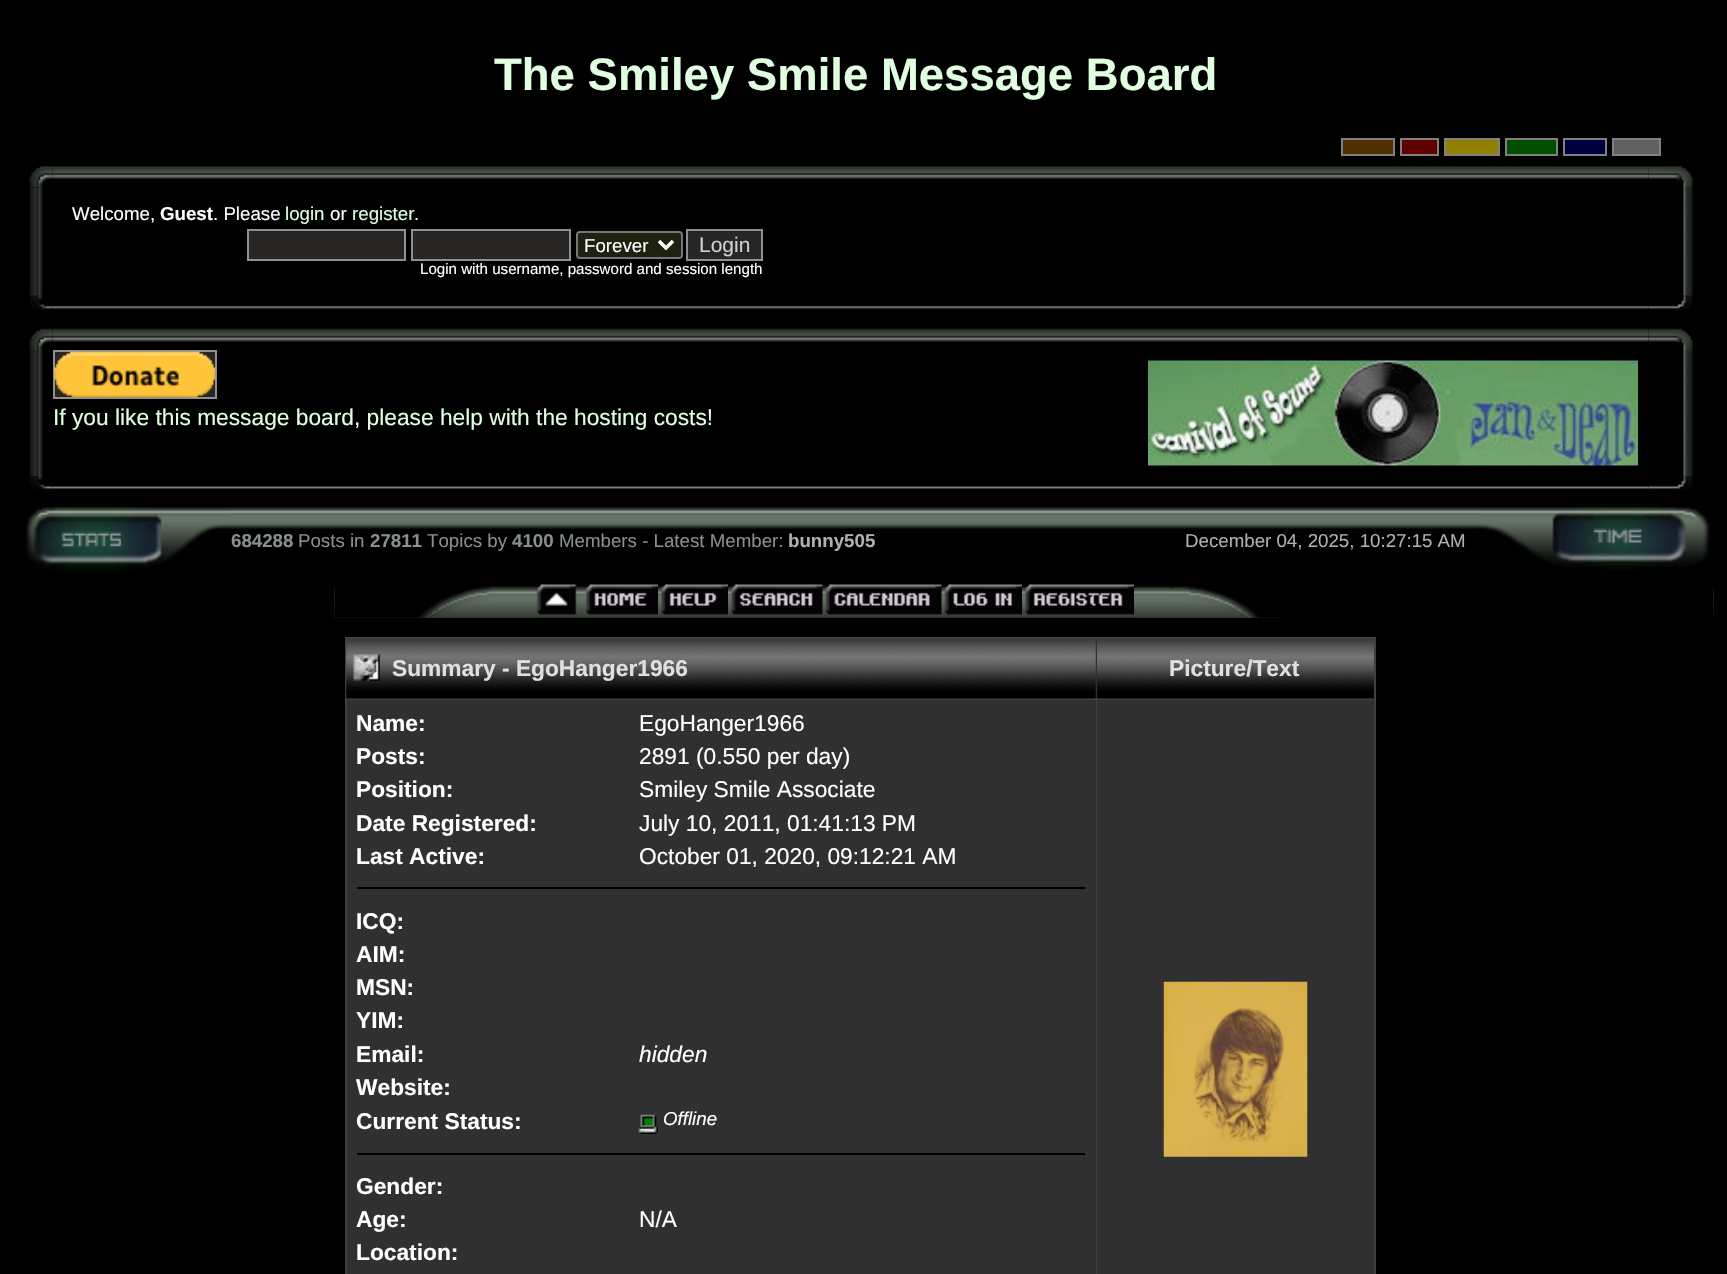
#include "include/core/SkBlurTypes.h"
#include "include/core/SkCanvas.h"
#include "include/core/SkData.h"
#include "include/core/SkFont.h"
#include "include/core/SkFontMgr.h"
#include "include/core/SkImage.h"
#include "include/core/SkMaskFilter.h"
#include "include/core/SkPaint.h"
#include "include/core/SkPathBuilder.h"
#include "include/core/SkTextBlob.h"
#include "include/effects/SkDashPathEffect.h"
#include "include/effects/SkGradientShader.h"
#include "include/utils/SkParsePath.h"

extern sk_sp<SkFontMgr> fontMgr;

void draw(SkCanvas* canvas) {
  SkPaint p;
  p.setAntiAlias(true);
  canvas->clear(SK_ColorBLACK);
  p.setColor(SkColorSetRGB(80, 48, 0));
  canvas->drawRect(SkRect::MakeLTRB(1342, 139, 1394, 155), p);
  p.setStyle(SkPaint::kStroke_Style);
  p.setStrokeWidth(2);
  p.setColor(SkColorSetRGB(128, 128, 128));
  canvas->drawRect(SkRect::MakeLTRB(1342, 139, 1394, 155), p);
  p.setStyle(SkPaint::kFill_Style);
  p.setColor(SkColorSetRGB(96, 0, 0));
  canvas->drawRect(SkRect::MakeLTRB(1401, 139, 1438, 155), p);
  p.setStyle(SkPaint::kStroke_Style);
  p.setColor(SkColorSetRGB(128, 128, 128));
  canvas->drawRect(SkRect::MakeLTRB(1401, 139, 1438, 155), p);
  p.setStyle(SkPaint::kFill_Style);
  p.setColor(SkColorSetRGB(144, 128, 0));
  canvas->drawRect(SkRect::MakeLTRB(1445, 139, 1499, 155), p);
  p.setStyle(SkPaint::kStroke_Style);
  p.setColor(SkColorSetRGB(128, 128, 128));
  canvas->drawRect(SkRect::MakeLTRB(1445, 139, 1499, 155), p);
  p.setStyle(SkPaint::kFill_Style);
  p.setColor(SkColorSetRGB(0, 80, 0));
  canvas->drawRect(SkRect::MakeLTRB(1506, 139, 1557, 155), p);
  p.setStyle(SkPaint::kStroke_Style);
  p.setColor(SkColorSetRGB(128, 128, 128));
  canvas->drawRect(SkRect::MakeLTRB(1506, 139, 1557, 155), p);
  p.setStyle(SkPaint::kFill_Style);
  p.setColor(SkColorSetRGB(0, 0, 64));
  canvas->drawRect(SkRect::MakeLTRB(1564, 139, 1606, 155), p);
  p.setStyle(SkPaint::kStroke_Style);
  p.setColor(SkColorSetRGB(128, 128, 128));
  canvas->drawRect(SkRect::MakeLTRB(1564, 139, 1606, 155), p);
  p.setStyle(SkPaint::kFill_Style);
  p.setColor(SkColorSetRGB(96, 96, 96));
  canvas->drawRect(SkRect::MakeLTRB(1613, 139, 1660, 155), p);
  p.setStyle(SkPaint::kStroke_Style);
  p.setColor(SkColorSetRGB(128, 128, 128));
  canvas->drawRect(SkRect::MakeLTRB(1613, 139, 1660, 155), p);
  canvas->drawImageRect(SkImages::DeferredFromEncodedData(SkData::MakeFromFileName("images/2.png")), SkRect::MakeLTRB(52, 166, 1649, 179), SkSamplingOptions());
  canvas->drawImageRect(SkImages::DeferredFromEncodedData(SkData::MakeFromFileName("images/1.png")), SkRect::MakeLTRB(29, 166, 53, 187), SkSamplingOptions());
  canvas->drawImageRect(SkImages::DeferredFromEncodedData(SkData::MakeFromFileName("images/5.png")), SkRect::MakeLTRB(1683, 187, 1693, 296), SkSamplingOptions());
  canvas->drawImageRect(SkImages::DeferredFromEncodedData(SkData::MakeFromFileName("images/3.png")), SkRect::MakeLTRB(1648, 166, 1693, 188), SkSamplingOptions());
  canvas->drawImageRect(SkImages::DeferredFromEncodedData(SkData::MakeFromFileName("images/4.png")), SkRect::MakeLTRB(29, 187, 43, 296), SkSamplingOptions());
  p.setStyle(SkPaint::kFill_Style);
  p.setColor(SkColorSetRGB(40, 37, 37));
  canvas->drawRect(SkRect::MakeLTRB(248, 230, 405, 260), p);
  p.setStyle(SkPaint::kStroke_Style);
  p.setColor(SkColorSetRGB(144, 144, 144));
  canvas->drawRect(SkRect::MakeLTRB(248, 230, 405, 260), p);
  p.setStyle(SkPaint::kFill_Style);
  p.setColor(SkColorSetRGB(40, 37, 37));
  canvas->drawRect(SkRect::MakeLTRB(412, 230, 570, 260), p);
  p.setStyle(SkPaint::kStroke_Style);
  p.setColor(SkColorSetRGB(144, 144, 144));
  canvas->drawRect(SkRect::MakeLTRB(412, 230, 570, 260), p);
  p.setStyle(SkPaint::kFill_Style);
  p.setColor(SkColorSetRGB(32, 32, 16));
  canvas->drawRoundRect(SkRect::MakeLTRB(577, 232, 682, 258), 3, 3, p);
  p.setStyle(SkPaint::kStroke_Style);
  p.setColor(SkColorSetRGB(118, 118, 118));
  canvas->drawRoundRect(SkRect::MakeLTRB(577, 232, 682, 258), 3, 3, p);
  p.setStrokeWidth(3.5f);
  p.setColor(SK_ColorWHITE);
  canvas->drawPath(SkPathBuilder().moveTo(659, 241).lineTo(666, 248).lineTo(673, 241).detach(), p);
  p.setStyle(SkPaint::kFill_Style);
  p.setColor(SkColorSetRGB(40, 37, 37));
  canvas->drawRect(SkRect::MakeLTRB(687, 230, 762, 260), p);
  p.setStyle(SkPaint::kStroke_Style);
  p.setStrokeWidth(2);
  p.setColor(SkColorSetRGB(144, 144, 144));
  canvas->drawRect(SkRect::MakeLTRB(687, 230, 762, 260), p);
  canvas->drawImageRect(SkImages::DeferredFromEncodedData(SkData::MakeFromFileName("images/7.png")), SkRect::MakeLTRB(52, 305, 1649, 310), SkSamplingOptions());
  canvas->drawImageRect(SkImages::DeferredFromEncodedData(SkData::MakeFromFileName("images/6.png")), SkRect::MakeLTRB(30, 296, 53, 310), SkSamplingOptions());
  canvas->drawImageRect(SkImages::DeferredFromEncodedData(SkData::MakeFromFileName("images/8.png")), SkRect::MakeLTRB(1648, 296, 1693, 310), SkSamplingOptions());
  canvas->drawImageRect(SkImages::DeferredFromEncodedData(SkData::MakeFromFileName("images/10.png")), SkRect::MakeLTRB(52, 328, 1649, 342), SkSamplingOptions());
  canvas->drawImageRect(SkImages::DeferredFromEncodedData(SkData::MakeFromFileName("images/9.png")), SkRect::MakeLTRB(29, 328, 53, 350), SkSamplingOptions());
  canvas->drawImageRect(SkImages::DeferredFromEncodedData(SkData::MakeFromFileName("images/11.png")), SkRect::MakeLTRB(1648, 328, 1693, 350), SkSamplingOptions());
  canvas->drawImageRect(SkImages::DeferredFromEncodedData(SkData::MakeFromFileName("images/12.png")), SkRect::MakeLTRB(29, 350, 43, 476), SkSamplingOptions());
  p.setStyle(SkPaint::kFill_Style);
  p.setColor(SkColorSetRGB(40, 37, 37));
  canvas->drawRect(SkRect::MakeLTRB(54, 351, 216, 398), p);
  p.setStyle(SkPaint::kStroke_Style);
  p.setColor(SkColorSetRGB(144, 144, 144));
  canvas->drawRect(SkRect::MakeLTRB(54, 351, 216, 398), p);
  canvas->drawImageRect(SkImages::DeferredFromEncodedData(SkData::MakeFromFileName("images/13.png")), SkRect::MakeLTRB(54, 351, 216, 398), SkSamplingOptions());
  canvas->drawImageRect(SkImages::DeferredFromEncodedData(SkData::MakeFromFileName("images/14.png")), SkRect::MakeLTRB(1148, 360, 1638, 466), SkSamplingOptions());
  canvas->drawImageRect(SkImages::DeferredFromEncodedData(SkData::MakeFromFileName("images/15.png")), SkRect::MakeLTRB(1683, 350, 1693, 476), SkSamplingOptions());
  canvas->drawImageRect(SkImages::DeferredFromEncodedData(SkData::MakeFromFileName("images/17.png")), SkRect::MakeLTRB(52, 486, 1649, 490), SkSamplingOptions());
  canvas->drawImageRect(SkImages::DeferredFromEncodedData(SkData::MakeFromFileName("images/16.png")), SkRect::MakeLTRB(30, 476, 53, 490), SkSamplingOptions());
  canvas->drawImageRect(SkImages::DeferredFromEncodedData(SkData::MakeFromFileName("images/18.png")), SkRect::MakeLTRB(1648, 476, 1693, 490), SkSamplingOptions());
  canvas->drawImageRect(SkImages::DeferredFromEncodedData(SkData::MakeFromFileName("images/19.png")), SkRect::MakeLTRB(26, 505, 231, 573), SkSamplingOptions());
  canvas->drawImageRect(SkImages::DeferredFromEncodedData(SkData::MakeFromFileName("images/20.png")), SkRect::MakeLTRB(231, 507, 1477, 529), SkSamplingOptions());
  canvas->drawImageRect(SkImages::DeferredFromEncodedData(SkData::MakeFromFileName("images/21.png")), SkRect::MakeLTRB(1477, 504, 1710, 569), SkSamplingOptions());
  canvas->drawImageRect(SkImages::DeferredFromEncodedData(SkData::MakeFromFileName("images/22.png")), SkRect::MakeLTRB(334, 586, 1714, 618), SkSamplingOptions());
  canvas->drawImageRect(SkImages::DeferredFromEncodedData(SkData::MakeFromFileName("images/23.png")), SkRect::MakeLTRB(334, 586, 534, 618), SkSamplingOptions());
  canvas->drawImageRect(SkImages::DeferredFromEncodedData(SkData::MakeFromFileName("images/24.png")), SkRect::MakeLTRB(536, 584, 577, 615), SkSamplingOptions());
  canvas->drawImageRect(SkImages::DeferredFromEncodedData(SkData::MakeFromFileName("images/25.png")), SkRect::MakeLTRB(585, 584, 658, 615), SkSamplingOptions());
  canvas->drawImageRect(SkImages::DeferredFromEncodedData(SkData::MakeFromFileName("images/26.png")), SkRect::MakeLTRB(661, 584, 728, 615), SkSamplingOptions());
  canvas->drawImageRect(SkImages::DeferredFromEncodedData(SkData::MakeFromFileName("images/27.png")), SkRect::MakeLTRB(731, 584, 823, 615), SkSamplingOptions());
  canvas->drawImageRect(SkImages::DeferredFromEncodedData(SkData::MakeFromFileName("images/28.png")), SkRect::MakeLTRB(825, 584, 942, 615), SkSamplingOptions());
  canvas->drawImageRect(SkImages::DeferredFromEncodedData(SkData::MakeFromFileName("images/29.png")), SkRect::MakeLTRB(944, 584, 1022, 615), SkSamplingOptions());
  canvas->drawImageRect(SkImages::DeferredFromEncodedData(SkData::MakeFromFileName("images/30.png")), SkRect::MakeLTRB(1025, 584, 1134, 615), SkSamplingOptions());
  canvas->drawImageRect(SkImages::DeferredFromEncodedData(SkData::MakeFromFileName("images/31.png")), SkRect::MakeLTRB(1134, 586, 1281, 618), SkSamplingOptions());
  p.setStyle(SkPaint::kFill_Style);
  p.setColor(SK_ColorBLACK);
  canvas->drawRect(SkRect::MakeLTRB(1281, 586, 1713, 618), p);
  p.setColor(SkColorSetRGB(64, 64, 64));
  canvas->drawRect(SkRect::MakeLTRB(345, 637, 1376, 1274), p);
  p.setColor(SkColorSetRGB(48, 48, 48));
  canvas->drawRect(SkRect::MakeLTRB(1095, 639, 1374, 698), p);
  canvas->drawImageRect(SkImages::DeferredFromEncodedData(SkData::MakeFromFileName("images/32.png")), SkRect::MakeLTRB(346, 639, 1096, 699), SkSamplingOptions());
  canvas->drawImageRect(SkImages::DeferredFromEncodedData(SkData::MakeFromFileName("images/33.png")), SkRect::MakeLTRB(353, 654, 380, 681), SkSamplingOptions());
  canvas->drawImageRect(SkImages::DeferredFromEncodedData(SkData::MakeFromFileName("images/34.png")), SkRect::MakeLTRB(1097, 639, 1374, 699), SkSamplingOptions());
  canvas->drawRect(SkRect::MakeLTRB(347, 700, 1096, 1274), p);
  p.setColor(SK_ColorBLACK);
  canvas->drawRect(SkRect::MakeLTRB(357, 887, 1085, 889), p);
  canvas->drawImageRect(SkImages::DeferredFromEncodedData(SkData::MakeFromFileName("images/35.png")), SkRect::MakeLTRB(638, 1114, 658, 1134), SkSamplingOptions());
  canvas->drawRect(SkRect::MakeLTRB(357, 1153, 1085, 1155), p);
  p.setColor(SkColorSetRGB(48, 48, 48));
  canvas->drawRect(SkRect::MakeLTRB(1097, 700, 1374, 1274), p);
  canvas->drawImageRect(SkImages::DeferredFromEncodedData(SkData::MakeFromFileName("images/36.png")), SkRect::MakeLTRB(1163, 981, 1308, 1157), SkSamplingOptions());
  SkFont font1(fontMgr->matchFamilyStyle("Liberation Sans", SkFontStyle::Bold()), 45.5f);
  font1.setSubpixel(true);
  p.setColor(SkColorSetRGB(224, 255, 224));
  canvas->drawString("The Smiley Smile Message Board", 494, 90, font1, p);
  SkFont font2(fontMgr->matchFamilyStyle("Liberation Sans", SkFontStyle::Normal()), 18.7f);
  font2.setSubpixel(true);
  p.setColor(SK_ColorWHITE);
  canvas->drawString("Welcome,", 72, 220, font2, p);
  SkFont font3(fontMgr->matchFamilyStyle("Liberation Sans", SkFontStyle::Bold()), 18.7f);
  font3.setSubpixel(true);
  canvas->drawString("Guest", 160, 220, font3, p);
  canvas->drawString(". Please", 213, 220, font2, p);
  p.setColor(SkColorSetRGB(224, 255, 224));
  canvas->drawString("login", 285, 220, font2, p);
  p.setColor(SK_ColorWHITE);
  canvas->drawString("or", 330, 220, font2, p);
  p.setColor(SkColorSetRGB(224, 255, 224));
  canvas->drawString("register", 352, 220, font2, p);
  p.setColor(SK_ColorWHITE);
  canvas->drawString(".", 414, 220, font2, p);
  canvas->drawString("Forever", 584, 252, font2, p);
  SkFont font4(fontMgr->matchFamilyStyle("Liberation Sans", SkFontStyle::Normal()), 21);
  font4.setSubpixel(true);
  p.setColor(SkColorSetRGB(208, 208, 208));
  canvas->drawString("Login", 699, 252, font4, p);
  SkFont font5(fontMgr->matchFamilyStyle("Liberation Sans", SkFontStyle::Normal()), 15.1f);
  font5.setSubpixel(true);
  p.setColor(SK_ColorWHITE);
  canvas->drawString("Login with username, password and session length", 420, 274, font5, p);
  SkFont font6(fontMgr->matchFamilyStyle("Liberation Sans", SkFontStyle::Normal()), 22.75f);
  font6.setSubpixel(true);
  p.setColor(SkColorSetRGB(224, 255, 224));
  canvas->drawString("If you like this message board, please help with the hosting costs!", 53, 425, font6, p);
  p.setColor(SkColorSetRGB(136, 144, 138));
  canvas->drawString("684288", 231, 547, font3, p);
  canvas->drawString("Posts in", 298, 547, font2, p);
  canvas->drawString("27811", 370, 547, font3, p);
  canvas->drawString("Topics by", 427, 547, font2, p);
  canvas->drawString("4100", 512, 547, font3, p);
  canvas->drawString("Members - Latest Member:", 559, 547, font2, p);
  p.setColor(SkColorSetRGB(176, 176, 176));
  canvas->drawString("bunny505", 788, 547, font3, p);
  canvas->drawString("December 04, 2025, 10:27:15 AM", 1185, 547, font2, p);
  SkFont font7(fontMgr->matchFamilyStyle("Liberation Sans", SkFontStyle::Bold()), 22.75f);
  font7.setSubpixel(true);
  p.setColor(SkColorSetRGB(224, 224, 224));
  canvas->drawString("Summary - EgoHanger1966", 392, 676, font7, p);
  canvas->drawString("Picture/Text", 1169, 676, font7, p);
  p.setColor(SK_ColorWHITE);
  canvas->drawString("Name:", 356, 731, font7, p);
  canvas->drawString("EgoHanger1966", 639, 731, font6, p);
  canvas->drawString("Posts:", 356, 764, font7, p);
  canvas->drawString("2891 (0.550 per day)", 639, 764, font6, p);
  canvas->drawString("Position:", 356, 797, font7, p);
  canvas->drawString("Smiley Smile Associate", 639, 797, font6, p);
  canvas->drawString("Date Registered:", 356, 831, font7, p);
  canvas->drawString("July 10, 2011, 01:41:13 PM", 639, 831, font6, p);
  canvas->drawString("Last Active:", 356, 864, font7, p);
  canvas->drawString("October 01, 2020, 09:12:21 AM", 639, 864, font6, p);
  canvas->drawString("ICQ:", 356, 929, font7, p);
  canvas->drawString("AIM:", 356, 962, font7, p);
  canvas->drawString("MSN:", 356, 995, font7, p);
  canvas->drawString("YIM:", 356, 1028, font7, p);
  canvas->drawString("Email:", 356, 1062, font7, p);
  SkFont font8(fontMgr->matchFamilyStyle("Liberation Sans", SkFontStyle::Italic()), 22.75f);
  font8.setSubpixel(true);
  canvas->drawString("hidden", 639, 1062, font8, p);
  canvas->drawString("Website:", 356, 1095, font7, p);
  canvas->drawString("Current Status:", 356, 1129, font7, p);
  SkFont font9(fontMgr->matchFamilyStyle("Liberation Sans", SkFontStyle::Italic()), 18.7f);
  font9.setSubpixel(true);
  canvas->drawString("Offline", 663, 1125, font9, p);
  canvas->drawString("Gender:", 356, 1194, font7, p);
  canvas->drawString("Age:", 356, 1227, font7, p);
  canvas->drawString("N/A", 639, 1227, font6, p);
  canvas->drawString("Location:", 356, 1260, font7, p);
}
